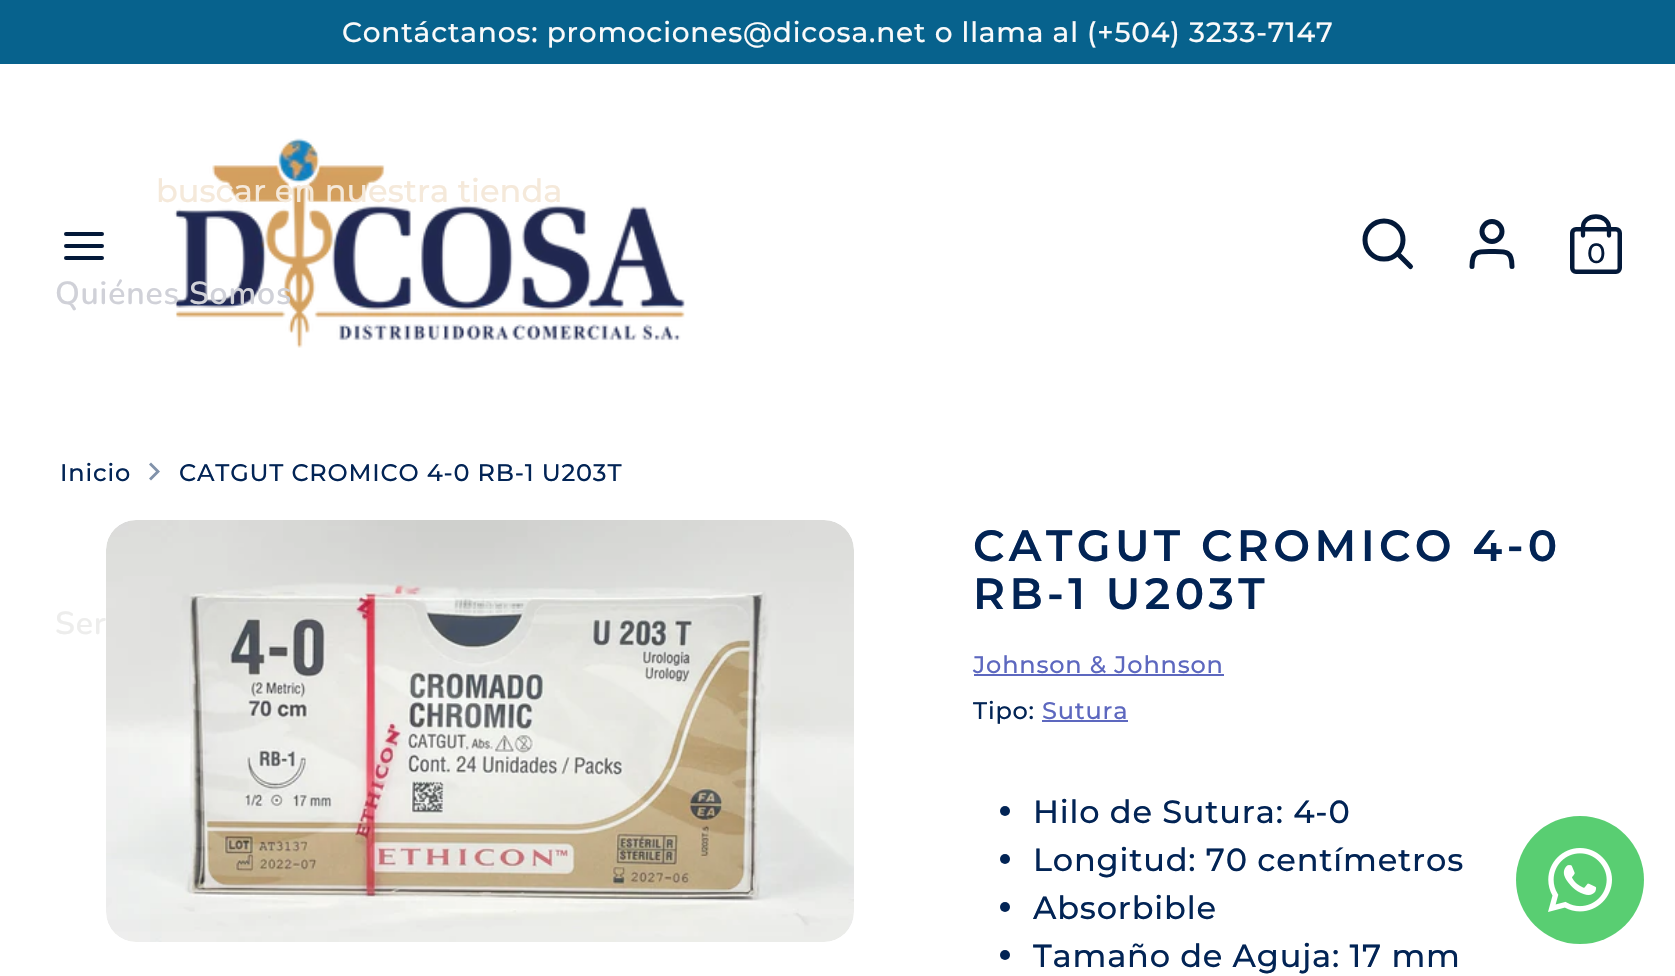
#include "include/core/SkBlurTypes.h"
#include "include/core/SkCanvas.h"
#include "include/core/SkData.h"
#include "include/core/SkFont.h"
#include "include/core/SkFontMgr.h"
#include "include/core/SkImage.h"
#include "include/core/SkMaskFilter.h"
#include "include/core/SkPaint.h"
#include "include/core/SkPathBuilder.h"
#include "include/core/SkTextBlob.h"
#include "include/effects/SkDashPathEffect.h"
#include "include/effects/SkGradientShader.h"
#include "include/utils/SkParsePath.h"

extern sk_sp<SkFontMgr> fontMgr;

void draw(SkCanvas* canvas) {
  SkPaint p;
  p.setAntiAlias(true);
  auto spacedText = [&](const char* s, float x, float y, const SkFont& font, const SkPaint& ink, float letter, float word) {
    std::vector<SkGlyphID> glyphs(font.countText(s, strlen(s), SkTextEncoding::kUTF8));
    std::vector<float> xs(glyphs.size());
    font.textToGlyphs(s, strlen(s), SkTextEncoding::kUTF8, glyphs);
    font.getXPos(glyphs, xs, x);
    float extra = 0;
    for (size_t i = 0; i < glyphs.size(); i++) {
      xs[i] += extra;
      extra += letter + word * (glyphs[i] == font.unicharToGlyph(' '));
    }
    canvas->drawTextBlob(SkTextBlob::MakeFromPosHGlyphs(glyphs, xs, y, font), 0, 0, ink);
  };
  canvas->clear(SK_ColorWHITE);
  p.setColor(SkColorSetRGB(7, 98, 141));
  canvas->drawRect(SkRect::MakeLTRB(0, 0, 1675, 64), p);
  p.setStyle(SkPaint::kStroke_Style);
  p.setStrokeWidth(4);
  p.setStrokeCap(SkPaint::kRound_Cap);
  p.setColor(SkColorSetRGB(3, 25, 57));
  canvas->drawPath(SkPathBuilder().moveTo(66, 246).lineTo(102, 246).moveTo(66, 234).lineTo(102, 234).moveTo(66, 258).lineTo(102, 258).detach(), p);
  canvas->drawImageRect(SkImages::DeferredFromEncodedData(SkData::MakeFromFileName("images/1.png")), SkRect::MakeLTRB(174, 138, 685, 348), SkSamplingOptions());
  p.setStrokeWidth(5);
  p.setStrokeCap(SkPaint::kButt_Cap);
  canvas->drawCircle(1384, 240, 19, p);
  p.setStrokeCap(SkPaint::kRound_Cap);
  canvas->drawPath(SkPathBuilder().moveTo(1410.5f, 266.5f).lineTo(1397.5f, 253.5f).detach(), p);
  canvas->drawPath(SkPathBuilder().moveTo(1512, 266.5f).cubicTo(1512, 250.5f, 1506, 251.5f, 1492, 251.5f).cubicTo(1478, 251.5f, 1472, 250.5f, 1472, 266.5f).detach(), p);
  p.setStrokeCap(SkPaint::kButt_Cap);
  canvas->drawCircle(1492, 231.5f, 10, p);
  p.setStrokeWidth(4.5f);
  canvas->drawRoundRect(SkRect::MakeLTRB(1572.25f, 229.25f, 1619.75f, 271.75f), 3.75f, 3.75f, p);
  p.setStrokeWidth(4.3f);
  p.setStrokeCap(SkPaint::kRound_Cap);
  canvas->drawPath(SkPathBuilder().moveTo(1583, 235.5f).lineTo(1583, 227).cubicTo(1583, 221, 1588.5f, 216.5f, 1596, 216.5f).cubicTo(1603, 216.5f, 1608.5f, 221, 1609, 227).lineTo(1609, 235.5f).detach(), p);
  p.setStyle(SkPaint::kFill_Style);
  p.setColor(SkColorSetRGB(129, 146, 170));
  canvas->drawPath(SkPathBuilder().moveTo(149, 478.5f).lineTo(156, 471.5f).lineTo(149, 464.5f).lineTo(151, 462.5f).lineTo(160, 471.5f).lineTo(151, 480.5f).close().detach(), p);
  canvas->drawImageRect(SkImages::DeferredFromEncodedData(SkData::MakeFromFileName("images/2.png")), SkRect::MakeLTRB(106, 520, 854, 942), SkSamplingOptions());
  p.setColor(SkColorSetRGB(93, 104, 191));
  canvas->drawRect(SkRect::MakeLTRB(974, 674, 1224, 676), p);
  canvas->drawRect(SkRect::MakeLTRB(1042, 720, 1128, 722), p);
  p.setColor(SkColorSetRGB(2, 36, 85));
  canvas->drawCircle(1005, 811, 5, p);
  canvas->drawCircle(1005, 859, 5, p);
  canvas->drawCircle(1005, 907, 5, p);
  canvas->drawCircle(1005, 955, 5, p);
  p.setColor(SkColorSetRGB(89, 206, 114));
  canvas->drawCircle(1580, 880, 64, p);
  canvas->drawImageRect(SkImages::DeferredFromEncodedData(SkData::MakeFromFileName("images/3.png")), SkRect::MakeLTRB(1548, 848, 1612, 912), SkSamplingOptions());
  SkFont font1(fontMgr->matchFamilyStyle("Montserrat", SkFontStyle(500, SkFontStyle::kNormal_Width, SkFontStyle::kUpright_Slant)), 28);
  font1.setSubpixel(true);
  p.setColor(SkColorSetRGB(250, 250, 250));
  spacedText("Contáctanos: promociones@dicosa.net o llama al (+504) 3233-7147", 342, 42, font1, p, 0.8f, 0);
  SkFont font2(fontMgr->matchFamilyStyle("Montserrat", SkFontStyle(500, SkFontStyle::kNormal_Width, SkFontStyle::kUpright_Slant)), 32);
  font2.setSubpixel(true);
  p.setColor(SkColorSetRGB(245, 233, 218));
  canvas->drawString("buscar en nuestra tienda", 156, 202, font2, p);
  SkFont font3(fontMgr->matchFamilyStyle("Nunito", SkFontStyle(600, SkFontStyle::kNormal_Width, SkFontStyle::kUpright_Slant)), 32);
  font3.setSubpixel(true);
  p.setColor(SkColorSetRGB(208, 209, 216));
  spacedText("Quiénes Somos", 55, 304, font3, p, 0.8f, 0);
  p.setColor(SkColorSetRGB(237, 237, 236));
  spacedText("Ser", 55, 634, font3, p, 0.8f, 0);
  p.setColor(SkColorSetRGB(3, 25, 57));
  canvas->drawString("0", 1587, 263, font1, p);
  SkFont font4(fontMgr->matchFamilyStyle("Montserrat", SkFontStyle(500, SkFontStyle::kNormal_Width, SkFontStyle::kUpright_Slant)), 24);
  font4.setSubpixel(true);
  p.setColor(SkColorSetRGB(2, 36, 85));
  spacedText("Inicio", 60, 481, font4, p, 0.8f, 0);
  spacedText("CATGUT CROMICO 4-0 RB-1 U203T", 179, 481, font4, p, 0.8f, 0);
  SkFont font5(fontMgr->matchFamilyStyle("Montserrat", SkFontStyle(600, SkFontStyle::kNormal_Width, SkFontStyle::kUpright_Slant)), 43.75f);
  font5.setSubpixel(true);
  spacedText("CATGUT CROMICO 4-0", 973, 561, font5, p, 4.4f, 0);
  spacedText("RB-1 U203T", 973, 609, font5, p, 4.4f, 0);
  p.setColor(SkColorSetRGB(93, 104, 191));
  spacedText("Johnson & Johnson", 973, 673, font4, p, 0.8f, 0);
  p.setColor(SkColorSetRGB(2, 36, 85));
  spacedText("Tipo:", 973, 719, font4, p, 0.8f, 0);
  p.setColor(SkColorSetRGB(93, 104, 191));
  spacedText("Sutura", 1042, 719, font4, p, 0.8f, 0);
  p.setColor(SkColorSetRGB(2, 36, 85));
  spacedText("Hilo de Sutura: 4-0", 1033, 823, font2, p, 0.8f, 0);
  spacedText("Longitud: 70 centímetros", 1033, 871, font2, p, 0.8f, 0);
  spacedText("Absorbible", 1033, 919, font2, p, 0.8f, 0);
  spacedText("Tamaño de Aguja: 17 mm", 1033, 967, font2, p, 0.8f, 0);
}
